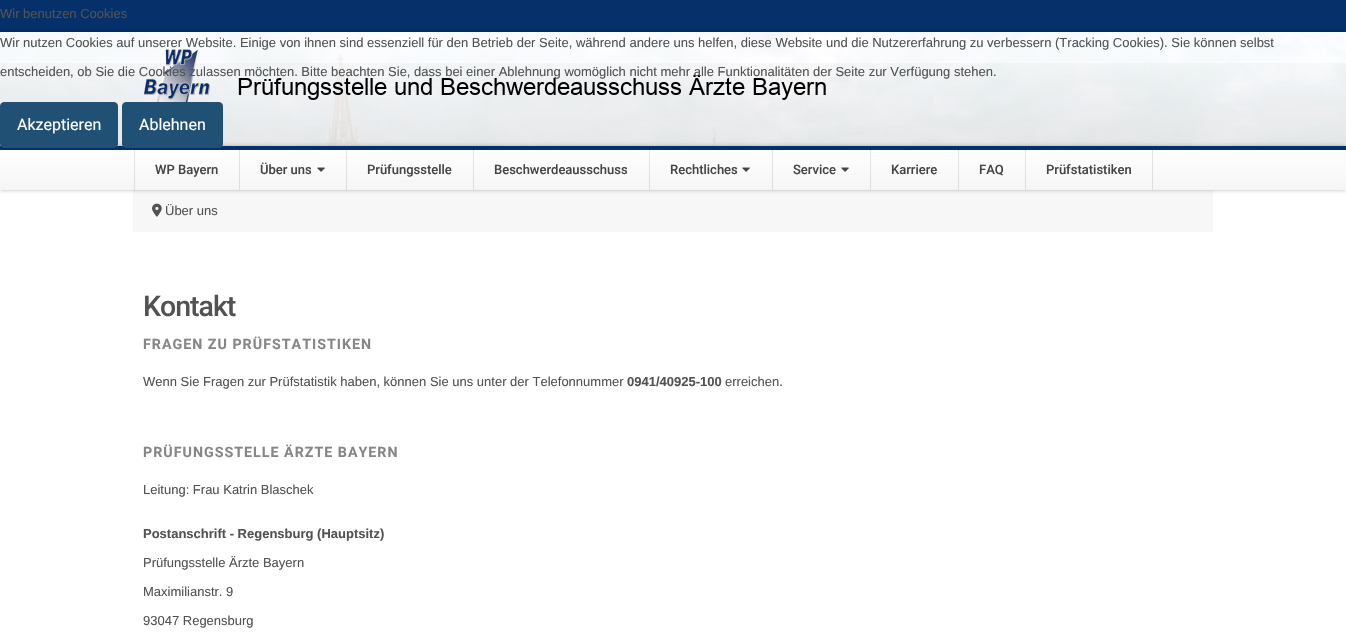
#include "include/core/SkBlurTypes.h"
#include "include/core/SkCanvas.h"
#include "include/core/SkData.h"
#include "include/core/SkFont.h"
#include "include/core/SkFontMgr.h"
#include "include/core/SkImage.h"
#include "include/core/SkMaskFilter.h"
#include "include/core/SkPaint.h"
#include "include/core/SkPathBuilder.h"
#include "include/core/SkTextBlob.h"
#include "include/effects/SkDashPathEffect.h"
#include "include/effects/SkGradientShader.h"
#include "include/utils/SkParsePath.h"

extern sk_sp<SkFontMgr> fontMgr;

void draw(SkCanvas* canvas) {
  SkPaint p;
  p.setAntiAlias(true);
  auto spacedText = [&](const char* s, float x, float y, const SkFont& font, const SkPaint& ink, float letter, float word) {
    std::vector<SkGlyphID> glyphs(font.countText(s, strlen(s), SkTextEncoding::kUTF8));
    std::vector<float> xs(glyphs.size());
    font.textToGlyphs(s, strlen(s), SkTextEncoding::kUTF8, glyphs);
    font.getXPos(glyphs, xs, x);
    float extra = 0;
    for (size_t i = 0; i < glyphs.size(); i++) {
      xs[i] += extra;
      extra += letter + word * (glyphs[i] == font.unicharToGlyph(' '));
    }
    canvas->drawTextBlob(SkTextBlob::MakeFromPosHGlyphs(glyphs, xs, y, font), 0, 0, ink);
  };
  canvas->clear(SK_ColorWHITE);
  canvas->drawImageRect(SkImages::DeferredFromEncodedData(SkData::MakeFromFileName("images/2.png")), SkRect::MakeLTRB(0, 32, 1346, 146), SkSamplingOptions());
  p.setColor(SkColorSetRGB(6, 48, 105));
  canvas->drawRect(SkRect::MakeLTRB(0, 0, 1346, 32), p);
  canvas->save();
  canvas->clipRect(SkRect::MakeLTRB(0, 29, 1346, 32));
  p.setColor(SkColorSetARGB(71, 0, 0, 0));
  p.setMaskFilter(SkMaskFilter::MakeBlur(kNormal_SkBlurStyle, 2));
  canvas->drawRect(SkRect::MakeLTRB(0, 32, 1346, 146), p);
  p.setMaskFilter(nullptr);
  canvas->restore();
  p.setColor(SkColorSetARGB(230, 255, 255, 255));
  canvas->drawRect(SkRect::MakeLTRB(0, 32, 1346, 146), p);
  {
    const SkColor colors[] = {SkColorSetARGB(20, 0, 0, 0), SkColorSetARGB(0, 0, 0, 0)};
    const float stops[] = {0, 1};
    const SkPoint ends[] = {{673, 146}, {673, 32}};
    p.setShader(SkGradientShader::MakeLinear(ends, colors, stops, 2, SkTileMode::kClamp));
    p.setAlpha(255);
  }
  canvas->drawRect(SkRect::MakeLTRB(0, 63, 1346, 146), p);
  p.setShader(nullptr);
  p.setColor(SkColorSetRGB(247, 247, 247));
  canvas->drawRect(SkRect::MakeLTRB(133, 190, 1213, 232), p);
  p.setColor(SkColorSetARGB(71, 0, 0, 0));
  p.setMaskFilter(SkMaskFilter::MakeBlur(kNormal_SkBlurStyle, 2));
  canvas->drawRect(SkRect::MakeLTRB(0, 146, 1346, 190), p);
  p.setMaskFilter(nullptr);
  p.setColor(SkColorSetRGB(6, 48, 105));
  canvas->drawRect(SkRect::MakeLTRB(0, 146, 1346, 150), p);
  p.setColor(SkColorSetRGB(32, 81, 117));
  canvas->drawRoundRect(SkRect::MakeLTRB(0.5f, 102.5f, 117.5f, 147.5f), 3.5f, 3.5f, p);
  p.setStyle(SkPaint::kStroke_Style);
  p.setStrokeWidth(1);
  canvas->drawRoundRect(SkRect::MakeLTRB(0.5f, 102.5f, 117.5f, 147.5f), 3.5f, 3.5f, p);
  p.setStyle(SkPaint::kFill_Style);
  canvas->drawRoundRect(SkRect::MakeLTRB(122.5f, 102.5f, 222.5f, 147.5f), 3.5f, 3.5f, p);
  p.setStyle(SkPaint::kStroke_Style);
  canvas->drawRoundRect(SkRect::MakeLTRB(122.5f, 102.5f, 222.5f, 147.5f), 3.5f, 3.5f, p);
  canvas->drawImageRect(SkImages::DeferredFromEncodedData(SkData::MakeFromFileName("images/1.png")), SkRect::MakeLTRB(152, 203, 162, 217), SkSamplingOptions());
  canvas->drawImageRect(SkImages::DeferredFromEncodedData(SkData::MakeFromFileName("images/3.png")), SkRect::MakeLTRB(143, 49, 826, 102), SkSamplingOptions());
  p.setStyle(SkPaint::kFill_Style);
  {
    const SkColor colors[] = {SkColorSetRGB(245, 245, 245), SK_ColorWHITE};
    const float stops[] = {0, 1};
    const SkPoint ends[] = {{673, 190}, {673, 150}};
    p.setShader(SkGradientShader::MakeLinear(ends, colors, stops, 2, SkTileMode::kClamp));
    p.setAlpha(255);
  }
  canvas->drawRect(SkRect::MakeLTRB(0, 150, 1346, 190), p);
  p.setShader(nullptr);
  p.setColor(SkColorSetARGB(26, 0, 0, 0));
  canvas->drawRect(SkRect::MakeLTRB(1152, 150, 1153, 190), p);
  canvas->drawRect(SkRect::MakeLTRB(134, 150, 135, 190), p);
  canvas->drawRect(SkRect::MakeLTRB(239, 150, 240, 190), p);
  canvas->drawImageRect(SkImages::DeferredFromEncodedData(SkData::MakeFromFileName("images/4.png")), SkRect::MakeLTRB(317, 167, 325, 172), SkSamplingOptions());
  canvas->drawRect(SkRect::MakeLTRB(346, 150, 347, 190), p);
  canvas->drawRect(SkRect::MakeLTRB(473, 150, 474, 190), p);
  canvas->drawRect(SkRect::MakeLTRB(649, 150, 650, 190), p);
  canvas->drawImageRect(SkImages::DeferredFromEncodedData(SkData::MakeFromFileName("images/4.png")), SkRect::MakeLTRB(742, 167, 750, 172), SkSamplingOptions());
  canvas->drawRect(SkRect::MakeLTRB(772, 150, 773, 190), p);
  canvas->drawImageRect(SkImages::DeferredFromEncodedData(SkData::MakeFromFileName("images/4.png")), SkRect::MakeLTRB(841, 167, 849, 172), SkSamplingOptions());
  canvas->drawRect(SkRect::MakeLTRB(870, 150, 871, 190), p);
  canvas->drawRect(SkRect::MakeLTRB(958, 150, 959, 190), p);
  canvas->drawRect(SkRect::MakeLTRB(1025, 150, 1026, 190), p);
  SkFont font1(fontMgr->matchFamilyStyle("Liberation Sans", SkFontStyle::Normal()), 13);
  font1.setSubpixel(true);
  p.setColor(SkColorSetRGB(82, 82, 82));
  canvas->drawString("Wir benutzen Cookies", 0, 18, font1, p);
  canvas->drawString("Wir nutzen Cookies auf unserer Website. Einige von ihnen sind essenziell für den Betrieb der Seite, während andere uns helfen, diese Website und die Nutzererfahrung zu verbessern (Tracking Cookies). Sie können selbst", 0, 47, font1, p);
  canvas->drawString("entscheiden, ob Sie die Cookies zulassen möchten. Bitte beachten Sie, dass bei einer Ablehnung womöglich nicht mehr alle Funktionalitäten der Seite zur Verfügung stehen.", 0, 76, font1, p);
  SkFont font2(fontMgr->matchFamilyStyle("Roboto", SkFontStyle::Normal()), 16);
  font2.setSubpixel(true);
  p.setColor(SK_ColorWHITE);
  canvas->drawString("Akzeptieren", 17, 130, font2, p);
  canvas->drawString("Ablehnen", 139, 130, font2, p);
  p.setColor(SkColorSetRGB(82, 82, 82));
  canvas->drawString("Über uns", 165, 215, font1, p);
  SkFont font3(fontMgr->matchFamilyStyle("Roboto", SkFontStyle(500, SkFontStyle::kNormal_Width, SkFontStyle::kUpright_Slant)), 28.5f);
  font3.setSubpixel(true);
  spacedText("Kontakt", 143, 316, font3, p, -1, 0);
  SkFont font4(fontMgr->matchFamilyStyle("Roboto", SkFontStyle::Bold()), 14.25f);
  font4.setSubpixel(true);
  p.setColor(SkColorSetRGB(134, 134, 134));
  spacedText("FRAGEN ZU PRÜFSTATISTIKEN", 143, 349, font4, p, 1, 0);
  p.setColor(SkColorSetRGB(82, 82, 82));
  canvas->drawString("Wenn Sie Fragen zur Prüfstatistik haben, können Sie uns unter der Telefonnummer", 143, 386, font1, p);
  SkFont font5(fontMgr->matchFamilyStyle("Liberation Sans", SkFontStyle::Bold()), 13);
  font5.setSubpixel(true);
  canvas->drawString("0941/40925-100", 627, 386, font5, p);
  canvas->drawString("erreichen.", 725, 386, font1, p);
  p.setColor(SkColorSetRGB(134, 134, 134));
  spacedText("PRÜFUNGSSTELLE ÄRZTE BAYERN", 143, 457, font4, p, 1, 0);
  p.setColor(SkColorSetRGB(82, 82, 82));
  canvas->drawString("Leitung: Frau Katrin Blaschek", 143, 494, font1, p);
  canvas->drawString("Postanschrift - Regensburg (Hauptsitz)", 143, 538, font5, p);
  canvas->drawString("Prüfungsstelle Ärzte Bayern", 143, 567, font1, p);
  canvas->drawString("Maximilianstr. 9", 143, 596, font1, p);
  canvas->drawString("93047 Regensburg", 143, 625, font1, p);
  SkFont font6(fontMgr->matchFamilyStyle("Roboto", SkFontStyle(500, SkFontStyle::kNormal_Width, SkFontStyle::kUpright_Slant)), 13);
  font6.setSubpixel(true);
  p.setColor(SkColorSetRGB(69, 69, 69));
  canvas->drawString("WP Bayern", 155, 174, font6, p);
  canvas->drawString("Über uns", 260, 174, font6, p);
  canvas->drawString("Prüfungsstelle", 367, 174, font6, p);
  canvas->drawString("Beschwerdeausschuss", 494, 174, font6, p);
  canvas->drawString("Rechtliches", 670, 174, font6, p);
  canvas->drawString("Service", 793, 174, font6, p);
  canvas->drawString("Karriere", 891, 174, font6, p);
  canvas->drawString("FAQ", 979, 174, font6, p);
  canvas->drawString("Prüfstatistiken", 1046, 174, font6, p);
}
